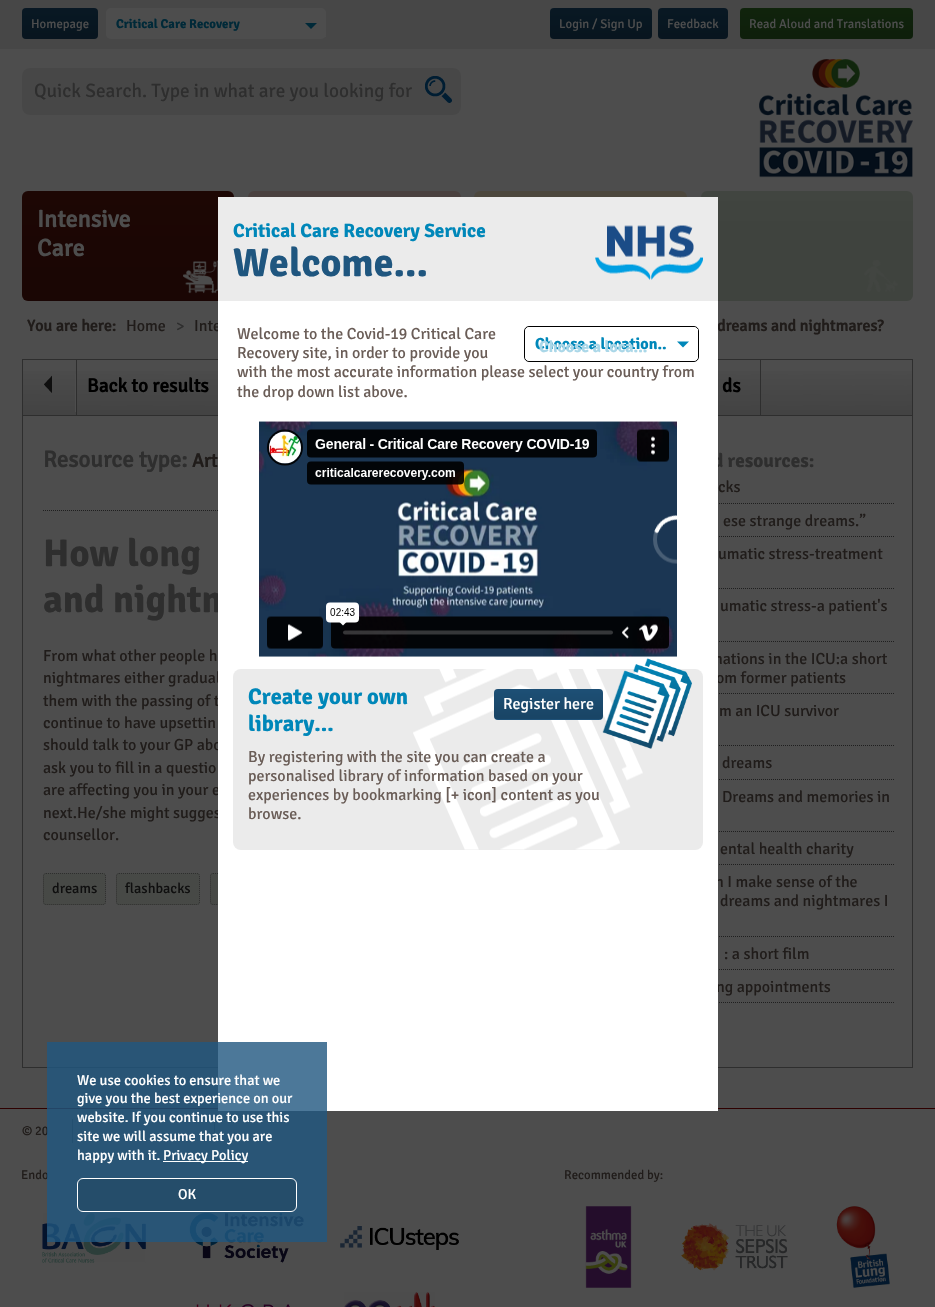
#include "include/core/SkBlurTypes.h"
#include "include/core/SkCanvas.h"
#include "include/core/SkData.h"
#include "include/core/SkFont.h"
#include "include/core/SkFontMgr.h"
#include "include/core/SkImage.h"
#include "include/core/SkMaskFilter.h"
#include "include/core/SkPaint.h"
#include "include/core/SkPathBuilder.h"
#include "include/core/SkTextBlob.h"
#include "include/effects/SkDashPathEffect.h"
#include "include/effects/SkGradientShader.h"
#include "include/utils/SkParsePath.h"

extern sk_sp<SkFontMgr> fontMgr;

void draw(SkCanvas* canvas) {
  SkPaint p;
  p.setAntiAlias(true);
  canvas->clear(SkColorSetRGB(77, 77, 77));
  p.setColor(SkColorSetRGB(71, 71, 71));
  canvas->drawRect(SkRect::MakeLTRB(0, 0, 935, 49), p);
  p.setColor(SkColorSetRGB(9, 26, 38));
  canvas->drawRoundRect(SkRect::MakeLTRB(22, 8, 98, 39), 4, 4, p);
  canvas->drawImageRect(SkImages::DeferredFromEncodedData(SkData::MakeFromFileName("images/1.png")), SkRect::MakeLTRB(22, 8, 98, 39), SkSamplingOptions());
  p.setColor(SkColorSetRGB(77, 77, 77));
  canvas->drawRoundRect(SkRect::MakeLTRB(106, 8, 326, 39), 5, 5, p);
  canvas->drawRect(SkRect::MakeLTRB(325, 36, 326, 37), p);
  p.setColor(SkColorSetRGB(0, 41, 56));
  canvas->drawPath(SkPathBuilder().moveTo(305, 23).lineTo(317, 23).lineTo(311, 29).close().detach(), p);
  p.setColor(SkColorSetRGB(9, 26, 38));
  canvas->drawRoundRect(SkRect::MakeLTRB(550, 8, 652, 39), 4, 4, p);
  canvas->drawImageRect(SkImages::DeferredFromEncodedData(SkData::MakeFromFileName("images/2.png")), SkRect::MakeLTRB(550, 8, 652, 39), SkSamplingOptions());
  canvas->drawRoundRect(SkRect::MakeLTRB(658, 8, 728, 39), 4, 4, p);
  canvas->drawImageRect(SkImages::DeferredFromEncodedData(SkData::MakeFromFileName("images/3.png")), SkRect::MakeLTRB(658, 8, 728, 39), SkSamplingOptions());
  p.setColor(SkColorSetRGB(17, 38, 13));
  canvas->drawRoundRect(SkRect::MakeLTRB(740, 8, 913, 39), 4, 4, p);
  canvas->drawImageRect(SkImages::DeferredFromEncodedData(SkData::MakeFromFileName("images/4.png")), SkRect::MakeLTRB(740, 8, 913, 39), SkSamplingOptions());
  p.setColor(SkColorSetRGB(71, 71, 71));
  canvas->drawRoundRect(SkRect::MakeLTRB(22, 68, 461, 115), 8, 8, p);
  canvas->drawImageRect(SkImages::DeferredFromEncodedData(SkData::MakeFromFileName("images/5.png")), SkRect::MakeLTRB(425, 76, 452, 103), SkSamplingOptions());
  canvas->drawImageRect(SkImages::DeferredFromEncodedData(SkData::MakeFromFileName("images/6.png")), SkRect::MakeLTRB(759, 59, 913, 178), SkSamplingOptions());
  p.setColor(SkColorSetRGB(32, 7, 4));
  canvas->drawRoundRect(SkRect::MakeLTRB(22, 191, 234, 301), 6, 6, p);
  canvas->drawImageRect(SkImages::DeferredFromEncodedData(SkData::MakeFromFileName("images/7.png")), SkRect::MakeLTRB(22, 191, 234, 301), SkSamplingOptions());
  canvas->drawImageRect(SkImages::DeferredFromEncodedData(SkData::MakeFromFileName("images/8.png")), SkRect::MakeLTRB(183, 260, 218, 294), SkSamplingOptions());
  p.setColor(SkColorSetRGB(74, 65, 63));
  canvas->drawRoundRect(SkRect::MakeLTRB(248, 191, 461, 301), 6, 6, p);
  p.setColor(SkColorSetRGB(76, 71, 61));
  canvas->drawRoundRect(SkRect::MakeLTRB(474, 191, 687, 301), 6, 6, p);
  p.setColor(SkColorSetRGB(65, 69, 64));
  canvas->drawRoundRect(SkRect::MakeLTRB(701, 191, 913, 301), 6, 6, p);
  canvas->drawImageRect(SkImages::DeferredFromEncodedData(SkData::MakeFromFileName("images/9.png")), SkRect::MakeLTRB(718, 201, 913, 301), SkSamplingOptions());
  canvas->drawImageRect(SkImages::DeferredFromEncodedData(SkData::MakeFromFileName("images/10.png")), SkRect::MakeLTRB(864, 260, 898, 292), SkSamplingOptions());
  p.setColor(SkColorSetRGB(235, 235, 235));
  canvas->drawRect(SkRect::MakeLTRB(218, 197, 718, 301), p);
  canvas->drawImageRect(SkImages::DeferredFromEncodedData(SkData::MakeFromFileName("images/11.png")), SkRect::MakeLTRB(595, 225, 703, 280), SkSamplingOptions());
  p.setStyle(SkPaint::kStroke_Style);
  p.setStrokeWidth(1);
  p.setColor(SkColorSetRGB(46, 46, 46));
  canvas->drawRect(SkRect::MakeLTRB(22.5f, 359.5f, 912.5f, 1067.5f), p);
  canvas->drawImageRect(SkImages::DeferredFromEncodedData(SkData::MakeFromFileName("images/16.png")), SkRect::MakeLTRB(23, 371, 912, 415), SkSamplingOptions());
  p.setStyle(SkPaint::kFill_Style);
  canvas->drawRect(SkRect::MakeLTRB(23, 415, 912, 416), p);
  p.setColor(SkColorSetRGB(77, 77, 77));
  canvas->drawRect(SkRect::MakeLTRB(75, 374, 76, 412), p);
  canvas->drawImageRect(SkImages::DeferredFromEncodedData(SkData::MakeFromFileName("images/17.png")), SkRect::MakeLTRB(44, 375, 52, 393), SkSamplingOptions());
  p.setColor(SkColorSetRGB(46, 46, 46));
  canvas->drawRect(SkRect::MakeLTRB(76, 360, 77, 415), p);
  canvas->drawRect(SkRect::MakeLTRB(760, 360, 761, 415), p);
  p.setStyle(SkPaint::kStroke_Style);
  p.setColor(SkColorSetRGB(31, 31, 31));
  p.setPathEffect(SkDashPathEffect::Make({{1, 1}}, 0));
  canvas->drawPath(SkPathBuilder().moveTo(43, 510.5f).lineTo(624, 510.5f).detach(), p);
  p.setPathEffect(nullptr);
  p.setStyle(SkPaint::kFill_Style);
  p.setColor(SkColorSetRGB(71, 73, 70));
  canvas->drawRoundRect(SkRect::MakeLTRB(43, 873, 106, 905), 3, 3, p);
  p.setStyle(SkPaint::kStroke_Style);
  p.setColor(SkColorSetRGB(46, 46, 46));
  p.setPathEffect(SkDashPathEffect::Make({{1, 1}}, 0));
  canvas->drawPath(SkPathBuilder().moveTo(46, 873.5f).lineTo(103, 873.5f).cubicTo(104.5f, 873.5f, 105.5f, 874.5f, 105.5f, 876).lineTo(105.5f, 902).cubicTo(105.5f, 903.5f, 104.5f, 904.5f, 103, 904.5f).lineTo(46, 904.5f).cubicTo(44.5f, 904.5f, 43.5f, 903.5f, 43.5f, 902).lineTo(43.5f, 876).cubicTo(43.5f, 874.5f, 44.5f, 873.5f, 46, 873.5f).close().detach(), p);
  p.setPathEffect(nullptr);
  p.setStyle(SkPaint::kFill_Style);
  p.setColor(SkColorSetRGB(71, 73, 70));
  canvas->drawRoundRect(SkRect::MakeLTRB(116, 873, 200, 905), 3, 3, p);
  p.setStyle(SkPaint::kStroke_Style);
  p.setColor(SkColorSetRGB(46, 46, 46));
  p.setPathEffect(SkDashPathEffect::Make({{1, 1}}, 0));
  canvas->drawPath(SkPathBuilder().moveTo(119, 873.5f).lineTo(197, 873.5f).cubicTo(198.5f, 873.5f, 199.5f, 874.5f, 199.5f, 876).lineTo(199.5f, 902).cubicTo(199.5f, 903.5f, 198.5f, 904.5f, 197, 904.5f).lineTo(119, 904.5f).cubicTo(117.5f, 904.5f, 116.5f, 903.5f, 116.5f, 902).lineTo(116.5f, 876).cubicTo(116.5f, 874.5f, 117.5f, 873.5f, 119, 873.5f).close().detach(), p);
  p.setPathEffect(nullptr);
  p.setStyle(SkPaint::kFill_Style);
  p.setColor(SkColorSetRGB(71, 73, 70));
  canvas->drawRoundRect(SkRect::MakeLTRB(210, 873, 245, 905), 3, 3, p);
  p.setStyle(SkPaint::kStroke_Style);
  p.setColor(SkColorSetRGB(46, 46, 46));
  p.setPathEffect(SkDashPathEffect::Make({{1, 1}}, 0));
  canvas->drawPath(SkPathBuilder().moveTo(213, 873.5f).lineTo(242, 873.5f).cubicTo(243.5f, 873.5f, 244.5f, 874.5f, 244.5f, 876).lineTo(244.5f, 902).cubicTo(244.5f, 903.5f, 243.5f, 904.5f, 242, 904.5f).lineTo(213, 904.5f).cubicTo(211.5f, 904.5f, 210.5f, 903.5f, 210.5f, 902).lineTo(210.5f, 876).cubicTo(210.5f, 874.5f, 211.5f, 873.5f, 213, 873.5f).close().detach(), p);
  p.setPathEffect(nullptr);
  p.setColor(SkColorSetRGB(31, 31, 31));
  p.setPathEffect(SkDashPathEffect::Make({{1, 1}}, 0));
  canvas->drawPath(SkPathBuilder().moveTo(663, 503.5f).lineTo(895, 503.5f).detach(), p);
  p.setPathEffect(nullptr);
  p.setPathEffect(SkDashPathEffect::Make({{1, 1}}, 0));
  canvas->drawPath(SkPathBuilder().moveTo(663, 536.5f).lineTo(895, 536.5f).detach(), p);
  p.setPathEffect(nullptr);
  p.setPathEffect(SkDashPathEffect::Make({{1, 1}}, 0));
  canvas->drawPath(SkPathBuilder().moveTo(663, 588.5f).lineTo(895, 588.5f).detach(), p);
  p.setPathEffect(nullptr);
  p.setPathEffect(SkDashPathEffect::Make({{1, 1}}, 0));
  canvas->drawPath(SkPathBuilder().moveTo(663, 641.5f).lineTo(895, 641.5f).detach(), p);
  p.setPathEffect(nullptr);
  p.setPathEffect(SkDashPathEffect::Make({{1, 1}}, 0));
  canvas->drawPath(SkPathBuilder().moveTo(663, 693.5f).lineTo(895, 693.5f).detach(), p);
  p.setPathEffect(nullptr);
  p.setPathEffect(SkDashPathEffect::Make({{1, 1}}, 0));
  canvas->drawPath(SkPathBuilder().moveTo(663, 745.5f).lineTo(895, 745.5f).detach(), p);
  p.setPathEffect(nullptr);
  p.setPathEffect(SkDashPathEffect::Make({{1, 1}}, 0));
  canvas->drawPath(SkPathBuilder().moveTo(663, 779.5f).lineTo(895, 779.5f).detach(), p);
  p.setPathEffect(nullptr);
  p.setPathEffect(SkDashPathEffect::Make({{1, 1}}, 0));
  canvas->drawPath(SkPathBuilder().moveTo(663, 831.5f).lineTo(895, 831.5f).detach(), p);
  p.setPathEffect(nullptr);
  p.setPathEffect(SkDashPathEffect::Make({{1, 1}}, 0));
  canvas->drawPath(SkPathBuilder().moveTo(663, 864.5f).lineTo(895, 864.5f).detach(), p);
  p.setPathEffect(nullptr);
  p.setPathEffect(SkDashPathEffect::Make({{1, 1}}, 0));
  canvas->drawPath(SkPathBuilder().moveTo(663, 936.5f).lineTo(895, 936.5f).detach(), p);
  p.setPathEffect(nullptr);
  p.setPathEffect(SkDashPathEffect::Make({{1, 1}}, 0));
  canvas->drawPath(SkPathBuilder().moveTo(663, 969.5f).lineTo(895, 969.5f).detach(), p);
  p.setPathEffect(nullptr);
  p.setPathEffect(SkDashPathEffect::Make({{1, 1}}, 0));
  canvas->drawPath(SkPathBuilder().moveTo(663, 1002.5f).lineTo(895, 1002.5f).detach(), p);
  p.setPathEffect(nullptr);
  p.setStyle(SkPaint::kFill_Style);
  p.setColor(SkColorSetRGB(46, 0, 0));
  canvas->drawRect(SkRect::MakeLTRB(0, 1108, 935, 1109), p);
  p.setColor(SkColorSetRGB(46, 46, 46));
  canvas->drawRect(SkRect::MakeLTRB(72, 1119, 73, 1143), p);
  canvas->drawRect(SkRect::MakeLTRB(214, 1119, 215, 1143), p);
  canvas->drawImageRect(SkImages::DeferredFromEncodedData(SkData::MakeFromFileName("images/18.png")), SkRect::MakeLTRB(42, 1213, 146, 1263), SkSamplingOptions());
  canvas->drawImageRect(SkImages::DeferredFromEncodedData(SkData::MakeFromFileName("images/19.png")), SkRect::MakeLTRB(189, 1212, 304, 1263), SkSamplingOptions());
  canvas->drawImageRect(SkImages::DeferredFromEncodedData(SkData::MakeFromFileName("images/20.png")), SkRect::MakeLTRB(340, 1226, 459, 1250), SkSamplingOptions());
  canvas->drawImageRect(SkImages::DeferredFromEncodedData(SkData::MakeFromFileName("images/21.png")), SkRect::MakeLTRB(196, 1304, 290, 1307), SkSamplingOptions());
  canvas->drawImageRect(SkImages::DeferredFromEncodedData(SkData::MakeFromFileName("images/22.png")), SkRect::MakeLTRB(344, 1292, 435, 1307), SkSamplingOptions());
  canvas->drawImageRect(SkImages::DeferredFromEncodedData(SkData::MakeFromFileName("images/23.png")), SkRect::MakeLTRB(585, 1206, 632, 1288), SkSamplingOptions());
  canvas->drawImageRect(SkImages::DeferredFromEncodedData(SkData::MakeFromFileName("images/24.png")), SkRect::MakeLTRB(681, 1223, 788, 1271), SkSamplingOptions());
  canvas->drawImageRect(SkImages::DeferredFromEncodedData(SkData::MakeFromFileName("images/25.png")), SkRect::MakeLTRB(836, 1206, 890, 1288), SkSamplingOptions());
  SkFont font1(fontMgr->matchFamilyStyle("Signika", SkFontStyle::Normal()), 12.75f);
  font1.setSubpixel(true);
  p.setColor(SkColorSetRGB(77, 77, 77));
  canvas->drawString("Homepage", 31, 28, font1, p);
  SkFont font2(fontMgr->matchFamilyStyle("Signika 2", SkFontStyle::Bold()), 12.75f);
  font2.setSubpixel(true);
  p.setColor(SkColorSetRGB(0, 41, 56));
  canvas->drawString("Critical Care Recovery", 116, 28, font2, p);
  p.setColor(SkColorSetRGB(77, 77, 77));
  canvas->drawString("Login / Sign Up", 559, 28, font1, p);
  canvas->drawString("Feedback", 667, 28, font1, p);
  canvas->drawString("Read Aloud and Translations", 749, 28, font1, p);
  SkFont font3(fontMgr->matchFamilyStyle("Signika", SkFontStyle::Normal()), 19.25f);
  font3.setSubpixel(true);
  p.setColor(SkColorSetRGB(46, 46, 46));
  canvas->drawString("Quick Search. Type in what are you looking for", 34, 97, font3, p);
  SkFont font4(fontMgr->matchFamilyStyle("Signika", SkFontStyle::Bold()), 24);
  font4.setSubpixel(true);
  p.setColor(SkColorSetRGB(77, 77, 77));
  canvas->drawString("Intensive", 37, 227, font4, p);
  canvas->drawString("Care", 37, 256, font4, p);
  SkFont font5(fontMgr->matchFamilyStyle("Signika", SkFontStyle::Bold()), 16);
  font5.setSubpixel(true);
  p.setColor(SkColorSetRGB(32, 28, 26));
  canvas->drawString("You are here:", 27, 331, font5, p);
  SkFont font6(fontMgr->matchFamilyStyle("Signika", SkFontStyle::Normal()), 16);
  font6.setSubpixel(true);
  canvas->drawString("Home", 126, 331, font6, p);
  p.setColor(SkColorSetRGB(46, 46, 46));
  canvas->drawString(">", 176, 331, font6, p);
  p.setColor(SkColorSetRGB(32, 28, 26));
  canvas->drawString("Inte", 194, 331, font6, p);
  canvas->drawString("dreams and nightmares?", 717, 331, font5, p);
  SkFont font7(fontMgr->matchFamilyStyle("Signika 2", SkFontStyle::Bold()), 19.25f);
  font7.setSubpixel(true);
  p.setColor(SkColorSetRGB(0, 135, 185));
  canvas->drawString("Critical Care Recovery Service", 233, 237, font7, p);
  SkFont font8(fontMgr->matchFamilyStyle("Signika 2", SkFontStyle::Bold()), 40);
  font8.setSubpixel(true);
  p.setColor(SkColorSetRGB(31, 86, 127));
  canvas->drawString("Welcome...", 233, 276, font8, p);
  SkFont font9(fontMgr->matchFamilyStyle("Signika", SkFontStyle::Bold()), 19.25f);
  font9.setSubpixel(true);
  p.setColor(SK_ColorBLACK);
  canvas->drawString("Back to results", 87, 392, font9, p);
  canvas->drawString("ds", 722, 392, font9, p);
  SkFont font10(fontMgr->matchFamilyStyle("Signika", SkFontStyle::Bold()), 23);
  font10.setSubpixel(true);
  p.setColor(SkColorSetRGB(46, 46, 46));
  canvas->drawString("Resource type:", 43, 467, font10, p);
  p.setColor(SkColorSetRGB(32, 28, 26));
  canvas->drawString("Art", 192, 467, font9, p);
  SkFont font11(fontMgr->matchFamilyStyle("Signika 2", SkFontStyle::Bold()), 38.5f);
  font11.setSubpixel(true);
  p.setColor(SkColorSetRGB(46, 46, 46));
  canvas->drawString("How long", 43, 566, font11, p);
  canvas->drawString("and nightm", 43, 612, font11, p);
  p.setColor(SkColorSetRGB(32, 28, 26));
  canvas->drawString("From what other people h", 43, 661, font6, p);
  canvas->drawString("nightmares either gradual", 43, 683, font6, p);
  canvas->drawString("them with the passing of t", 43, 706, font6, p);
  canvas->drawString("continue to have upsettin", 43, 728, font6, p);
  canvas->drawString("should talk to your GP abo", 43, 750, font6, p);
  canvas->drawString("ask you to fill in a questio", 43, 773, font6, p);
  canvas->drawString("are affecting you in your e", 43, 795, font6, p);
  canvas->drawString("next.He/she might sugges", 43, 818, font6, p);
  canvas->drawString("counsellor.", 43, 840, font6, p);
  SkFont font12(fontMgr->matchFamilyStyle("Signika", SkFontStyle::Normal()), 14.4f);
  font12.setSubpixel(true);
  p.setColor(SkColorSetRGB(15, 15, 15));
  canvas->drawString("dreams", 52, 893, font12, p);
  canvas->drawString("flashbacks", 125, 893, font12, p);
  p.setColor(SkColorSetRGB(46, 46, 46));
  canvas->drawString("d resources:", 713, 467, font7, p);
  p.setColor(SkColorSetRGB(32, 28, 26));
  canvas->drawString("cks", 718, 492, font6, p);
  canvas->drawString("ese strange dreams.”", 723, 526, font6, p);
  canvas->drawString("umatic stress-treatment", 718, 559, font6, p);
  canvas->drawString("umatic stress-a patient's", 720, 611, font6, p);
  canvas->drawString("nations in the ICU:a short", 714, 664, font6, p);
  canvas->drawString("om former patients", 716, 683, font6, p);
  canvas->drawString("m an ICU survivor", 719, 716, font6, p);
  canvas->drawString("dreams", 722, 768, font6, p);
  canvas->drawString("Dreams and memories in", 722, 802, font6, p);
  canvas->drawString("ental health charity", 720, 854, font6, p);
  canvas->drawString("n I make sense of the", 715, 887, font6, p);
  canvas->drawString("dreams and nightmares I", 720, 906, font6, p);
  canvas->drawString(": a short film", 724, 959, font6, p);
  canvas->drawString("ng appointments", 716, 992, font6, p);
  p.setColor(SK_ColorWHITE);
  canvas->drawRect(SkRect::MakeLTRB(218, 301, 718, 1111), p);
  p.setStyle(SkPaint::kStroke_Style);
  p.setColor(SK_ColorBLACK);
  canvas->drawRoundRect(SkRect::MakeLTRB(524.5f, 326.5f, 698.5f, 361.5f), 4.5f, 4.5f, p);
  p.setStyle(SkPaint::kFill_Style);
  p.setColor(SK_ColorWHITE);
  canvas->drawRoundRect(SkRect::MakeLTRB(525, 327, 698, 361), 5, 5, p);
  SkFont font13(fontMgr->matchFamilyStyle("Signika 2", SkFontStyle::Bold()), 16);
  font13.setSubpixel(true);
  p.setColor(SkColorSetRGB(0, 135, 185));
  canvas->drawString("Choose a location..", 535, 349, font13, p);
  p.setColor(SkColorSetRGB(170, 215, 232));
  canvas->drawString("Choose a loca...", 539, 352, font13, p);
  p.setColor(SkColorSetRGB(235, 235, 235));
  canvas->drawRoundRect(SkRect::MakeLTRB(233, 669, 703, 850), 8, 8, p);
  canvas->drawImageRect(SkImages::DeferredFromEncodedData(SkData::MakeFromFileName("images/13.png")), SkRect::MakeLTRB(413, 669, 643, 850), SkSamplingOptions());
  p.setColor(SkColorSetRGB(31, 86, 127));
  canvas->drawRoundRect(SkRect::MakeLTRB(494, 689, 603, 720), 4, 4, p);
  canvas->drawImageRect(SkImages::DeferredFromEncodedData(SkData::MakeFromFileName("images/14.png")), SkRect::MakeLTRB(494, 689, 603, 720), SkSamplingOptions());
  canvas->drawImageRect(SkImages::DeferredFromEncodedData(SkData::MakeFromFileName("images/15.png")), SkRect::MakeLTRB(602, 658, 692, 749), SkSamplingOptions());
  p.setColor(SK_ColorWHITE);
  canvas->drawString("Register here", 503, 709, font6, p);
  p.setColor(SkColorSetRGB(106, 93, 87));
  canvas->drawString("browse.", 248, 819, font6, p);
  canvas->drawString("experiences by bookmarking [+ icon] content as you", 248, 800, font6, p);
  canvas->drawString("personalised library of information based on your", 248, 781, font6, p);
  canvas->drawString("By registering with the site you can create a", 248, 762, font6, p);
  SkFont font14(fontMgr->matchFamilyStyle("Signika 2", SkFontStyle::Bold()), 22.5f);
  font14.setSubpixel(true);
  p.setColor(SkColorSetRGB(0, 135, 185));
  canvas->drawString("library...", 248, 731, font14, p);
  canvas->drawString("Create your own", 248, 704, font14, p);
  canvas->drawImageRect(SkImages::DeferredFromEncodedData(SkData::MakeFromFileName("images/12.png")), SkRect::MakeLTRB(259, 421, 677, 657), SkSamplingOptions());
  canvas->drawPath(SkPathBuilder().moveTo(677, 341.5f).lineTo(689, 341.5f).lineTo(683, 347.5f).close().detach(), p);
  p.setColor(SK_ColorWHITE);
  canvas->drawRect(SkRect::MakeLTRB(697, 329, 698, 358), p);
  p.setColor(SkColorSetRGB(106, 93, 87));
  canvas->drawString("the drop down list above.", 237, 397, font6, p);
  canvas->drawString("with the most accurate information please select your country from", 237, 377, font6, p);
  canvas->drawString("Recovery site, in order to provide you", 237, 358, font6, p);
  canvas->drawString("Welcome to the Covid-19 Critical Care", 237, 339, font6, p);
  p.setColor(SkColorSetRGB(32, 28, 26));
  canvas->drawString("© 20", 22, 1135, font1, p);
  canvas->drawString("Endo", 21, 1179, font1, p);
  p.setColor(SkColorSetARGB(204, 31, 86, 127));
  canvas->drawRect(SkRect::MakeLTRB(47, 1042, 327, 1242), p);
  p.setColor(SkColorSetARGB(26, 0, 0, 0));
  canvas->drawRoundRect(SkRect::MakeLTRB(77.5f, 1178.5f, 296.5f, 1211.5f), 5.5f, 5.5f, p);
  p.setStyle(SkPaint::kStroke_Style);
  p.setColor(SK_ColorWHITE);
  canvas->drawRoundRect(SkRect::MakeLTRB(77.5f, 1178.5f, 296.5f, 1211.5f), 5.5f, 5.5f, p);
  p.setStyle(SkPaint::kFill_Style);
  canvas->drawString("OK", 178, 1199, font12, p);
  canvas->drawRect(SkRect::MakeLTRB(163, 1161, 248, 1162), p);
  canvas->drawString("Privacy Policy", 163, 1160, font12, p);
  canvas->drawString("happy with it.", 77, 1160, font12, p);
  canvas->drawString("site we will assume that you are", 77, 1141, font12, p);
  canvas->drawString("website. If you continue to use this", 77, 1122, font12, p);
  canvas->drawString("give you the best experience on our", 77, 1103, font12, p);
  canvas->drawString("We use cookies to ensure that we", 77, 1085, font12, p);
  p.setColor(SkColorSetRGB(32, 28, 26));
  canvas->drawString("Recommended by:", 564, 1179, font1, p);
}
